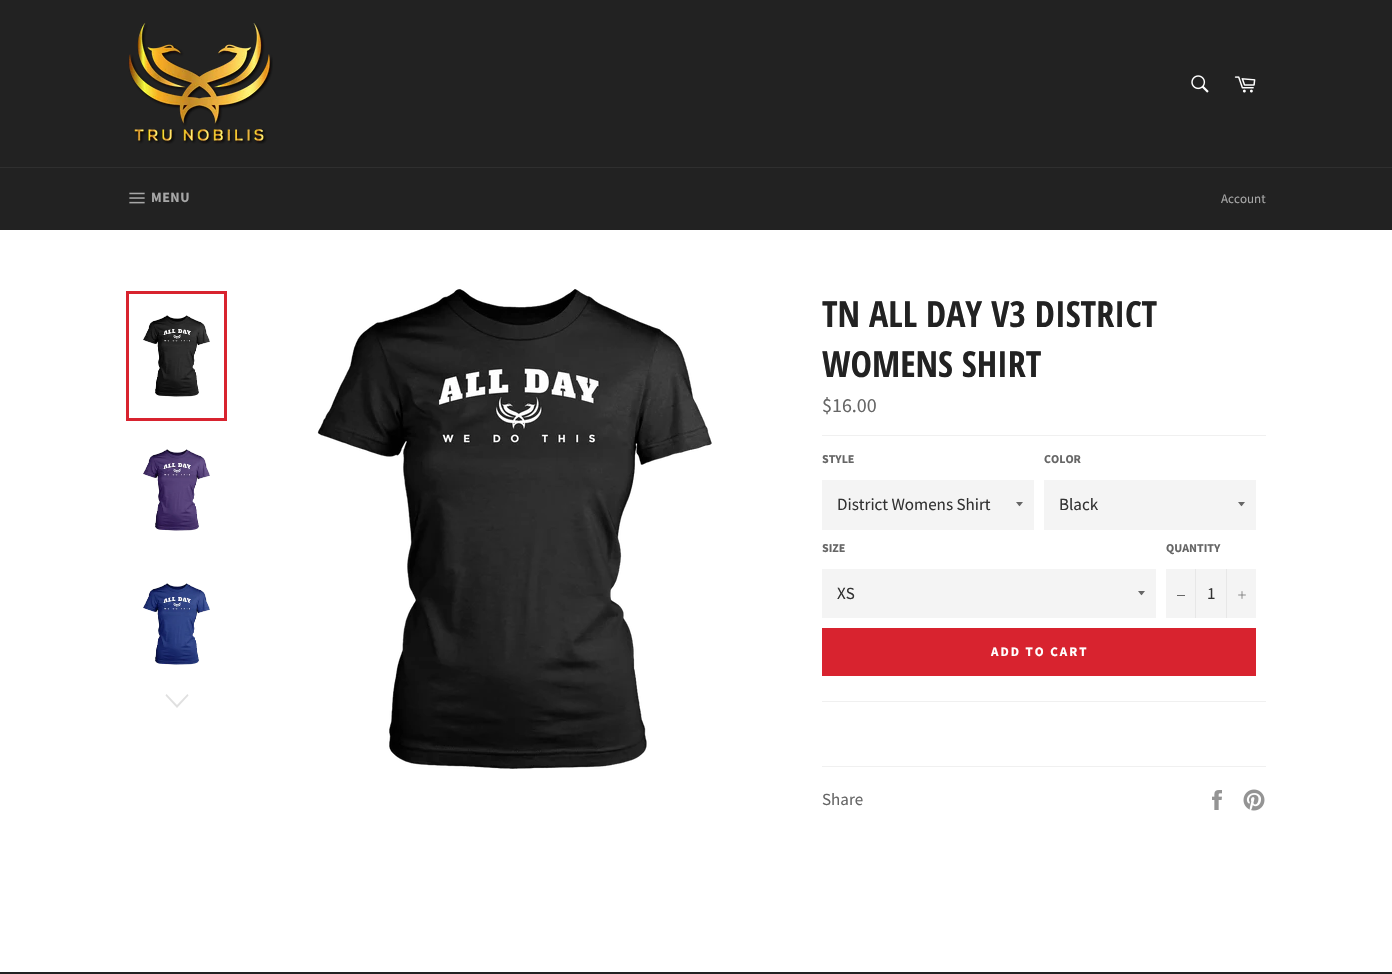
#include "include/core/SkBlurTypes.h"
#include "include/core/SkCanvas.h"
#include "include/core/SkData.h"
#include "include/core/SkFont.h"
#include "include/core/SkFontMgr.h"
#include "include/core/SkImage.h"
#include "include/core/SkMaskFilter.h"
#include "include/core/SkPaint.h"
#include "include/core/SkPathBuilder.h"
#include "include/core/SkTextBlob.h"
#include "include/effects/SkDashPathEffect.h"
#include "include/effects/SkGradientShader.h"
#include "include/utils/SkParsePath.h"

extern sk_sp<SkFontMgr> fontMgr;

void draw(SkCanvas* canvas) {
  SkPaint p;
  p.setAntiAlias(true);
  auto spacedText = [&](const char* s, float x, float y, const SkFont& font, const SkPaint& ink, float letter, float word) {
    std::vector<SkGlyphID> glyphs(font.countText(s, strlen(s), SkTextEncoding::kUTF8));
    std::vector<float> xs(glyphs.size());
    font.textToGlyphs(s, strlen(s), SkTextEncoding::kUTF8, glyphs);
    font.getXPos(glyphs, xs, x);
    float extra = 0;
    for (size_t i = 0; i < glyphs.size(); i++) {
      xs[i] += extra;
      extra += letter + word * (glyphs[i] == font.unicharToGlyph(' '));
    }
    canvas->drawTextBlob(SkTextBlob::MakeFromPosHGlyphs(glyphs, xs, y, font), 0, 0, ink);
  };
  canvas->clear(SkColorSetRGB(34, 34, 34));
  canvas->drawImageRect(SkImages::DeferredFromEncodedData(SkData::MakeFromFileName("images/1.png")), SkRect::MakeLTRB(128, 23, 273, 144), SkSamplingOptions());
  canvas->drawImageRect(SkImages::DeferredFromEncodedData(SkData::MakeFromFileName("images/2.png")), SkRect::MakeLTRB(1191, 75, 1209, 93), SkSamplingOptions());
  canvas->drawImageRect(SkImages::DeferredFromEncodedData(SkData::MakeFromFileName("images/3.png")), SkRect::MakeLTRB(1234, 76, 1256, 93), SkSamplingOptions());
  p.setColor(SkColorSetRGB(47, 47, 47));
  canvas->drawRect(SkRect::MakeLTRB(0, 167, 1392, 168), p);
  canvas->drawImageRect(SkImages::DeferredFromEncodedData(SkData::MakeFromFileName("images/4.png")), SkRect::MakeLTRB(129, 192, 145, 204), SkSamplingOptions());
  p.setColor(SK_ColorWHITE);
  canvas->drawRect(SkRect::MakeLTRB(0, 230, 1392, 972), p);
  canvas->drawImageRect(SkImages::DeferredFromEncodedData(SkData::MakeFromFileName("images/5.png")), SkRect::MakeLTRB(143, 315, 210, 397), SkSamplingOptions());
  p.setStyle(SkPaint::kStroke_Style);
  p.setStrokeWidth(3);
  p.setColor(SkColorSetRGB(216, 35, 47));
  canvas->drawRect(SkRect::MakeLTRB(127.5f, 292.5f, 225.5f, 419.5f), p);
  canvas->drawImageRect(SkImages::DeferredFromEncodedData(SkData::MakeFromFileName("images/6.png")), SkRect::MakeLTRB(143, 449, 210, 531), SkSamplingOptions());
  canvas->drawImageRect(SkImages::DeferredFromEncodedData(SkData::MakeFromFileName("images/7.png")), SkRect::MakeLTRB(143, 583, 210, 665), SkSamplingOptions());
  p.setStyle(SkPaint::kFill_Style);
  p.setColor(SkColorSetRGB(224, 224, 224));
  canvas->drawPath(SkPathBuilder().moveTo(187.5f, 694).lineTo(188.5f, 695.5f).lineTo(177, 708).lineTo(165.5f, 695.5f).lineTo(166.5f, 694).lineTo(177, 705).close().detach(), p);
  canvas->drawImageRect(SkImages::DeferredFromEncodedData(SkData::MakeFromFileName("images/8.png")), SkRect::MakeLTRB(317, 289, 712, 769), SkSamplingOptions());
  p.setColor(SkColorSetRGB(240, 240, 240));
  canvas->drawRect(SkRect::MakeLTRB(822, 435, 1266, 436), p);
  p.setColor(SkColorSetRGB(244, 244, 244));
  canvas->drawRect(SkRect::MakeLTRB(822, 480, 1034, 530), p);
  p.setColor(SkColorSetRGB(102, 102, 102));
  canvas->drawPath(SkPathBuilder().moveTo(1016, 502).cubicTo(1020.5f, 507.5f, 1018.5f, 507.5f, 1023, 502).close().detach(), p);
  p.setColor(SkColorSetRGB(244, 244, 244));
  canvas->drawRect(SkRect::MakeLTRB(1044, 480, 1256, 530), p);
  p.setColor(SkColorSetRGB(102, 102, 102));
  canvas->drawPath(SkPathBuilder().moveTo(1238, 502).cubicTo(1242.5f, 507.5f, 1240.5f, 507.5f, 1245, 502).close().detach(), p);
  p.setColor(SkColorSetRGB(244, 244, 244));
  canvas->drawRect(SkRect::MakeLTRB(822, 569, 1156, 618), p);
  p.setColor(SkColorSetRGB(102, 102, 102));
  canvas->drawPath(SkPathBuilder().moveTo(1138, 591).cubicTo(1142.5f, 596.5f, 1140.5f, 596.5f, 1145, 591).close().detach(), p);
  p.setColor(SkColorSetRGB(244, 244, 244));
  canvas->drawRect(SkRect::MakeLTRB(1166, 569, 1256, 618), p);
  p.setColor(SkColorSetRGB(231, 231, 231));
  canvas->drawRect(SkRect::MakeLTRB(1195, 569, 1196, 618), p);
  p.setColor(SkColorSetRGB(102, 102, 102));
  canvas->drawRect(SkRect::MakeLTRB(1177, 595, 1185, 596), p);
  p.setColor(SkColorSetRGB(231, 231, 231));
  canvas->drawRect(SkRect::MakeLTRB(1226, 569, 1227, 618), p);
  canvas->drawImageRect(SkImages::DeferredFromEncodedData(SkData::MakeFromFileName("images/9.png")), SkRect::MakeLTRB(1238, 591, 1246, 599), SkSamplingOptions());
  p.setColor(SkColorSetRGB(216, 35, 47));
  canvas->drawRect(SkRect::MakeLTRB(822, 628, 1256, 676), p);
  p.setColor(SkColorSetRGB(240, 240, 240));
  canvas->drawRect(SkRect::MakeLTRB(822, 701, 1266, 702), p);
  canvas->drawRect(SkRect::MakeLTRB(822, 766, 1266, 767), p);
  canvas->drawImageRect(SkImages::DeferredFromEncodedData(SkData::MakeFromFileName("images/10.png")), SkRect::MakeLTRB(1212, 790, 1222, 810), SkSamplingOptions());
  canvas->drawImageRect(SkImages::DeferredFromEncodedData(SkData::MakeFromFileName("images/11.png")), SkRect::MakeLTRB(1243, 789, 1265, 811), SkSamplingOptions());
  SkFont font1(fontMgr->matchFamilyStyle("Source Sans Pro", SkFontStyle::Bold()), 14);
  font1.setSubpixel(true);
  p.setColor(SkColorSetRGB(167, 167, 167));
  spacedText("MENU", 151, 202, font1, p, 0.5f, 0);
  SkFont font2(fontMgr->matchFamilyStyle("Source Sans Pro", SkFontStyle::Normal()), 13);
  font2.setSubpixel(true);
  canvas->drawString("Account", 1221, 203, font2, p);
  SkFont font3(fontMgr->matchFamilyStyle("Open Sans Condensed", SkFontStyle::Bold()), 36);
  font3.setSubpixel(true);
  p.setColor(SkColorSetRGB(34, 34, 34));
  canvas->drawString("TN ALL DAY V3 DISTRICT", 822, 327, font3, p);
  canvas->drawString("WOMENS SHIRT", 822, 377, font3, p);
  SkFont font4(fontMgr->matchFamilyStyle("Source Sans Pro", SkFontStyle::Normal()), 20);
  font4.setSubpixel(true);
  p.setColor(SkColorSetRGB(102, 102, 102));
  canvas->drawString("$16.00", 822, 412, font4, p);
  SkFont font5(fontMgr->matchFamilyStyle("Source Sans Pro", SkFontStyle::Bold()), 12);
  font5.setSubpixel(true);
  canvas->drawString("STYLE", 822, 463, font5, p);
  SkFont font6(fontMgr->matchFamilyStyle("Source Sans Pro", SkFontStyle::Normal()), 17);
  font6.setSubpixel(true);
  p.setColor(SkColorSetRGB(51, 51, 51));
  canvas->drawString("District Womens Shirt", 837, 510, font6, p);
  p.setColor(SkColorSetRGB(102, 102, 102));
  canvas->drawString("COLOR", 1044, 463, font5, p);
  p.setColor(SkColorSetRGB(51, 51, 51));
  canvas->drawString("Black", 1059, 510, font6, p);
  p.setColor(SkColorSetRGB(102, 102, 102));
  canvas->drawString("SIZE", 822, 552, font5, p);
  p.setColor(SkColorSetRGB(51, 51, 51));
  canvas->drawString("XS", 837, 599, font6, p);
  p.setColor(SkColorSetRGB(102, 102, 102));
  canvas->drawString("QUANTITY", 1166, 552, font5, p);
  p.setColor(SkColorSetRGB(51, 51, 51));
  canvas->drawString("1", 1207, 599, font6, p);
  SkFont font7(fontMgr->matchFamilyStyle("Source Sans Pro", SkFontStyle::Bold()), 13);
  font7.setSubpixel(true);
  p.setColor(SK_ColorWHITE);
  spacedText("ADD TO CART", 991, 656, font7, p, 2, 0);
  p.setColor(SkColorSetRGB(102, 102, 102));
  canvas->drawString("Share", 822, 805, font6, p);
}
